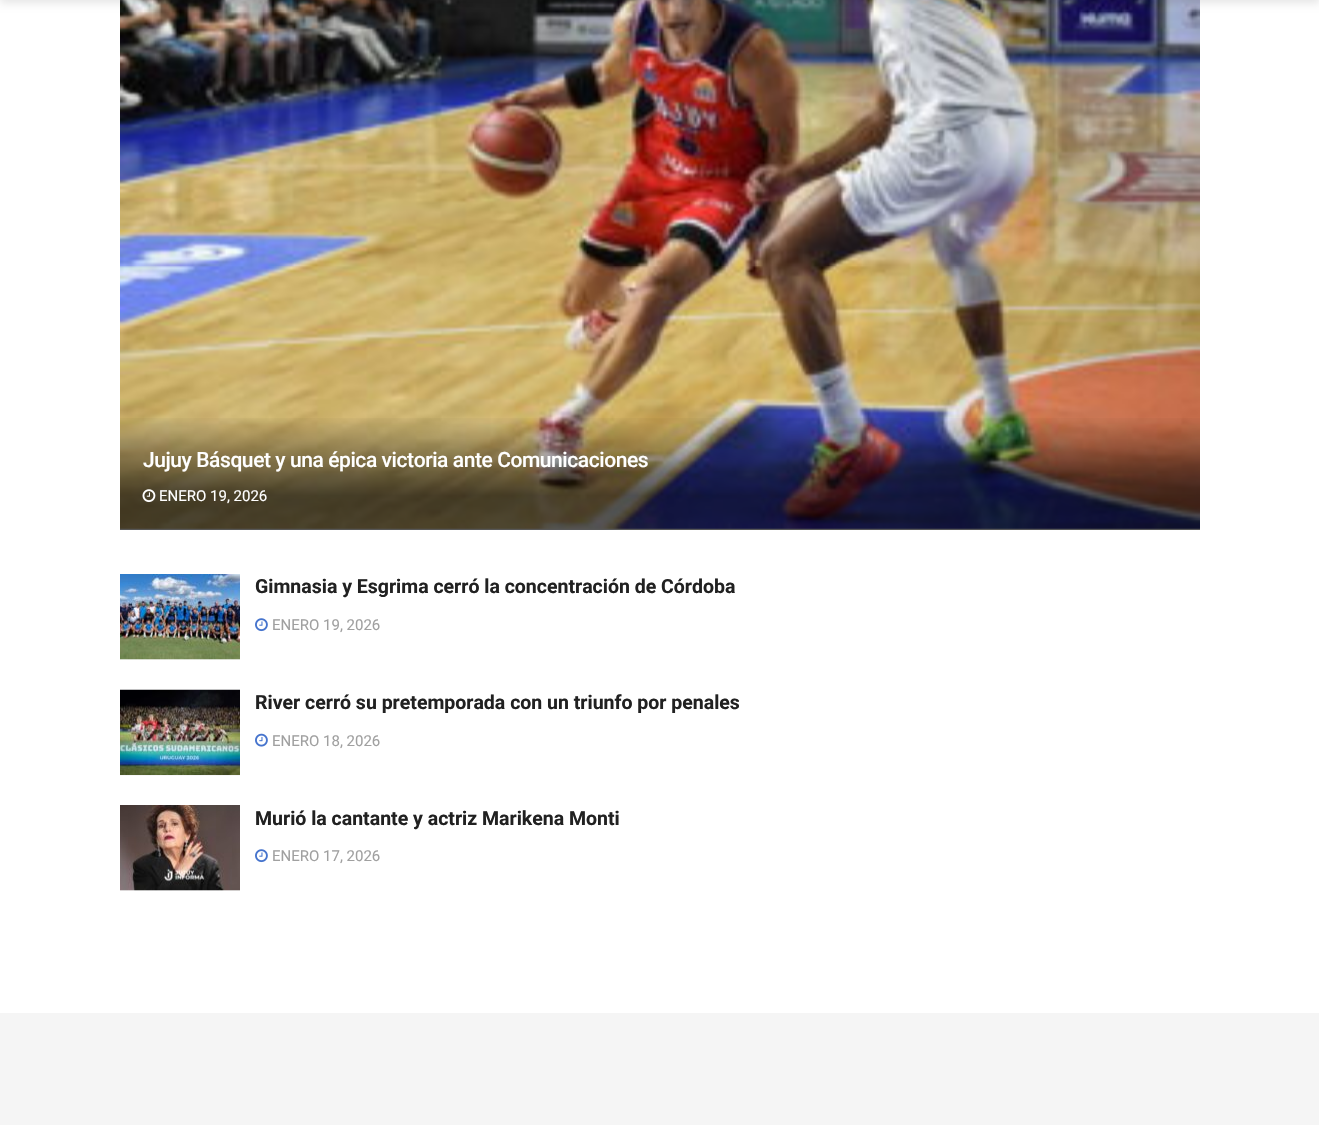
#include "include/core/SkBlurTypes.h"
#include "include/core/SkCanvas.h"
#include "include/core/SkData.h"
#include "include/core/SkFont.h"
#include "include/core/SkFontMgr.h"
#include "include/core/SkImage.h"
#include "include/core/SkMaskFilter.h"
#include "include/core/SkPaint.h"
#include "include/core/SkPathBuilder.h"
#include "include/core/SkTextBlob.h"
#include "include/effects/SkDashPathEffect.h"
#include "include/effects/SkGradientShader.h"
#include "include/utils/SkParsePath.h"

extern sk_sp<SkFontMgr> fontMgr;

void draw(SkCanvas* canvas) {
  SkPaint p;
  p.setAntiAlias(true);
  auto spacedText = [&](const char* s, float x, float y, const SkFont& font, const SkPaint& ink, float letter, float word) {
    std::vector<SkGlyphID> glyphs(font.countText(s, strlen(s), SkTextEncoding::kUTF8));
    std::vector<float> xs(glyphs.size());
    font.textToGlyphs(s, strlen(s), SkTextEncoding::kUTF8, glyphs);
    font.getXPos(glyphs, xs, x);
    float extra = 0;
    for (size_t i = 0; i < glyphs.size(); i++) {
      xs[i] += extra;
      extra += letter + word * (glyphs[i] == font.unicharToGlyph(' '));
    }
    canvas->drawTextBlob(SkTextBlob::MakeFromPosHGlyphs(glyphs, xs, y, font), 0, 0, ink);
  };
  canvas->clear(SK_ColorWHITE);
  p.setColor(SkColorSetRGB(247, 247, 247));
  canvas->drawRect(SkRect::MakeLTRB(120, 528, 1200, 530), p);
  canvas->drawImageRect(SkImages::DeferredFromEncodedData(SkData::MakeFromFileName("images/1.png")), SkRect::MakeLTRB(120, 0, 1200, 529), SkSamplingOptions());
  p.setColor(SkColorSetARGB(26, 0, 0, 0));
  p.setMaskFilter(SkMaskFilter::MakeBlur(kNormal_SkBlurStyle, 4.5f));
  canvas->drawRect(SkRect::MakeLTRB(0, -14, 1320, 3), p);
  p.setMaskFilter(nullptr);
  {
    const SkColor colors[] = {SkColorSetARGB(0, 0, 0, 0), SkColorSetARGB(166, 0, 0, 0)};
    const float stops[] = {0, 0.7f};
    const SkPoint ends[] = {{660, 415}, {660, 530}};
    p.setShader(SkGradientShader::MakeLinear(ends, colors, stops, 2, SkTileMode::kClamp));
    p.setAlpha(255);
  }
  canvas->drawRect(SkRect::MakeLTRB(120, 418, 1200, 530), p);
  canvas->drawImageRect(SkImages::DeferredFromEncodedData(SkData::MakeFromFileName("images/2.png")), SkRect::MakeLTRB(142, 489, 156, 503), SkSamplingOptions());
  p.setShader(nullptr);
  p.setColor(SkColorSetRGB(247, 247, 247));
  canvas->drawRect(SkRect::MakeLTRB(120, 659, 240, 660), p);
  canvas->drawImageRect(SkImages::DeferredFromEncodedData(SkData::MakeFromFileName("images/3.png")), SkRect::MakeLTRB(120, 574, 240, 660), SkSamplingOptions());
  canvas->drawImageRect(SkImages::DeferredFromEncodedData(SkData::MakeFromFileName("images/4.png")), SkRect::MakeLTRB(255, 618, 268, 632), SkSamplingOptions());
  canvas->drawRect(SkRect::MakeLTRB(120, 775, 240, 776), p);
  canvas->drawImageRect(SkImages::DeferredFromEncodedData(SkData::MakeFromFileName("images/5.png")), SkRect::MakeLTRB(120, 689, 240, 775), SkSamplingOptions());
  canvas->drawImageRect(SkImages::DeferredFromEncodedData(SkData::MakeFromFileName("images/6.png")), SkRect::MakeLTRB(255, 733, 268, 747), SkSamplingOptions());
  canvas->drawRect(SkRect::MakeLTRB(120, 890, 240, 891), p);
  canvas->drawImageRect(SkImages::DeferredFromEncodedData(SkData::MakeFromFileName("images/7.png")), SkRect::MakeLTRB(120, 805, 240, 891), SkSamplingOptions());
  canvas->drawImageRect(SkImages::DeferredFromEncodedData(SkData::MakeFromFileName("images/4.png")), SkRect::MakeLTRB(255, 849, 268, 863), SkSamplingOptions());
  p.setColor(SkColorSetRGB(245, 245, 245));
  canvas->drawRect(SkRect::MakeLTRB(0, 1013, 1319, 1125), p);
  SkFont font1(fontMgr->matchFamilyStyle("Roboto", SkFontStyle(500, SkFontStyle::kNormal_Width, SkFontStyle::kUpright_Slant)), 21);
  font1.setSubpixel(true);
  p.setColor(SK_ColorWHITE);
  spacedText("Jujuy Básquet y una épica victoria ante Comunicaciones", 143, 467, font1, p, -0.42f, 0);
  SkFont font2(fontMgr->matchFamilyStyle("Roboto", SkFontStyle::Normal()), 15);
  font2.setSubpixel(true);
  canvas->drawString("ENERO 19, 2026", 159, 501, font2, p);
  SkFont font3(fontMgr->matchFamilyStyle("Roboto", SkFontStyle::Bold()), 19.5f);
  font3.setSubpixel(true);
  p.setColor(SkColorSetRGB(33, 33, 33));
  canvas->drawString("Gimnasia y Esgrima cerró la concentración de Córdoba", 255, 593, font3, p);
  p.setColor(SkColorSetRGB(160, 160, 160));
  canvas->drawString("ENERO 19, 2026", 272, 630, font2, p);
  p.setColor(SkColorSetRGB(33, 33, 33));
  canvas->drawString("River cerró su pretemporada con un triunfo por penales", 255, 709, font3, p);
  p.setColor(SkColorSetRGB(160, 160, 160));
  canvas->drawString("ENERO 18, 2026", 272, 746, font2, p);
  p.setColor(SkColorSetRGB(33, 33, 33));
  canvas->drawString("Murió la cantante y actriz Marikena Monti", 255, 825, font3, p);
  p.setColor(SkColorSetRGB(160, 160, 160));
  canvas->drawString("ENERO 17, 2026", 272, 861, font2, p);
}
